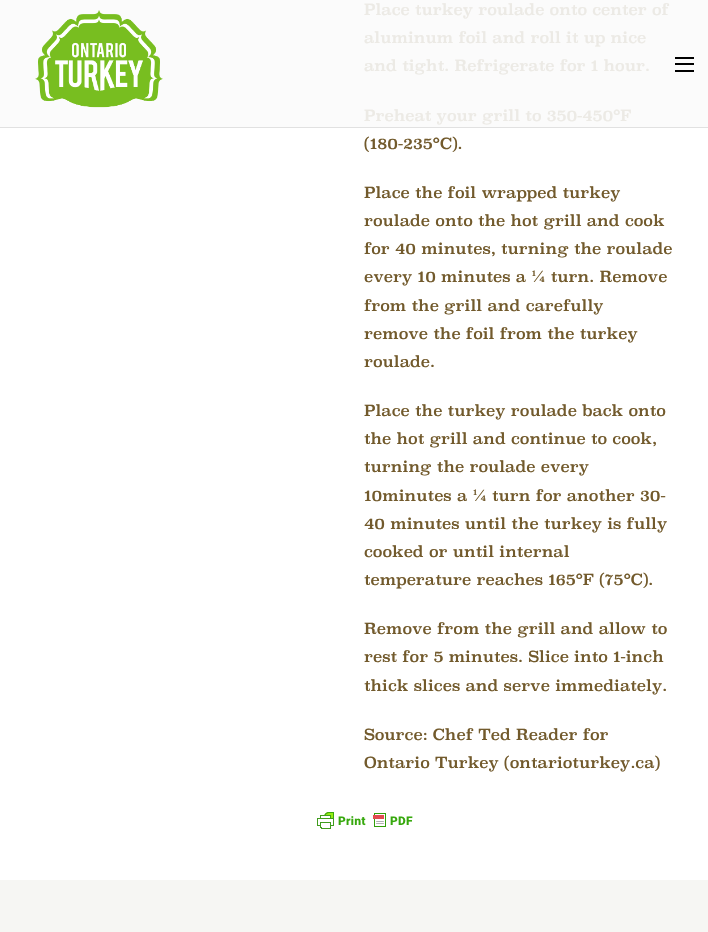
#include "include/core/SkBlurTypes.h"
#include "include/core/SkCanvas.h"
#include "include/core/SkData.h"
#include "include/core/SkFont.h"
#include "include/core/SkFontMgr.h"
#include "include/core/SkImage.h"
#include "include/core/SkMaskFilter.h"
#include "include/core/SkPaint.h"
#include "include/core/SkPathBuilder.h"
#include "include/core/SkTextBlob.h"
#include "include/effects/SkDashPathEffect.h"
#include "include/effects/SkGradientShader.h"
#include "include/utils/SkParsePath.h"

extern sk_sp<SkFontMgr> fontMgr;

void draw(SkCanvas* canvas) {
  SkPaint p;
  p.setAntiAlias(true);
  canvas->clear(SK_ColorWHITE);
  p.setColor(SkColorSetRGB(251, 251, 251));
  canvas->drawRect(SkRect::MakeLTRB(0, 0, 708, 127), p);
  canvas->drawImageRect(SkImages::DeferredFromEncodedData(SkData::MakeFromFileName("images/1.png")), SkRect::MakeLTRB(317, 812, 413, 829), SkSamplingOptions());
  p.setColor(SkColorSetRGB(246, 246, 243));
  canvas->drawRect(SkRect::MakeLTRB(0, 880, 708, 932), p);
  p.setColor(SkColorSetRGB(225, 225, 225));
  canvas->drawRect(SkRect::MakeLTRB(0, 127, 708, 128), p);
  canvas->drawImageRect(SkImages::DeferredFromEncodedData(SkData::MakeFromFileName("images/2.png")), SkRect::MakeLTRB(35, 10, 163, 108), SkSamplingOptions());
  p.setColor(SK_ColorBLACK);
  canvas->drawRect(SkRect::MakeLTRB(675, 70, 694, 72), p);
  canvas->drawRect(SkRect::MakeLTRB(675, 57, 694, 59), p);
  canvas->drawRect(SkRect::MakeLTRB(675, 63, 694, 65), p);
  SkFont font1(fontMgr->matchFamilyStyle("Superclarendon", SkFontStyle::Normal()), 15.2f);
  font1.setSubpixel(true);
  p.setColor(SkColorSetRGB(236, 234, 229));
  canvas->drawString("Place turkey roulade onto center of", 364, 15, font1, p);
  canvas->drawString("aluminum foil and roll it up nice", 364, 43, font1, p);
  canvas->drawString("and tight. Refrigerate for 1 hour.", 364, 71, font1, p);
  canvas->drawString("Preheat your grill to 350-450°F", 364, 121, font1, p);
  p.setColor(SkColorSetRGB(114, 90, 44));
  canvas->drawString("(180-235°C).", 364, 149, font1, p);
  canvas->drawString("Place the foil wrapped turkey", 364, 198, font1, p);
  canvas->drawString("roulade onto the hot grill and cook", 364, 226, font1, p);
  canvas->drawString("for 40 minutes, turning the roulade", 364, 254, font1, p);
  canvas->drawString("every 10 minutes a ¼ turn. Remove", 364, 282, font1, p);
  canvas->drawString("from the grill and carefully", 364, 311, font1, p);
  canvas->drawString("remove the foil from the turkey", 364, 339, font1, p);
  canvas->drawString("roulade.", 364, 367, font1, p);
  canvas->drawString("Place the turkey roulade back onto", 364, 416, font1, p);
  canvas->drawString("the hot grill and continue to cook,", 364, 444, font1, p);
  canvas->drawString("turning the roulade every", 364, 472, font1, p);
  canvas->drawString("10minutes a ¼ turn for another 30-", 364, 501, font1, p);
  canvas->drawString("40 minutes until the turkey is fully", 364, 529, font1, p);
  canvas->drawString("cooked or until internal", 364, 557, font1, p);
  canvas->drawString("temperature reaches 165°F (75°C).", 364, 585, font1, p);
  canvas->drawString("Remove from the grill and allow to", 364, 634, font1, p);
  canvas->drawString("rest for 5 minutes. Slice into 1-inch", 364, 662, font1, p);
  canvas->drawString("thick slices and serve immediately.", 364, 691, font1, p);
  canvas->drawString("Source: Chef Ted Reader for", 364, 740, font1, p);
  canvas->drawString("Ontario Turkey (ontarioturkey.ca)", 364, 768, font1, p);
}
